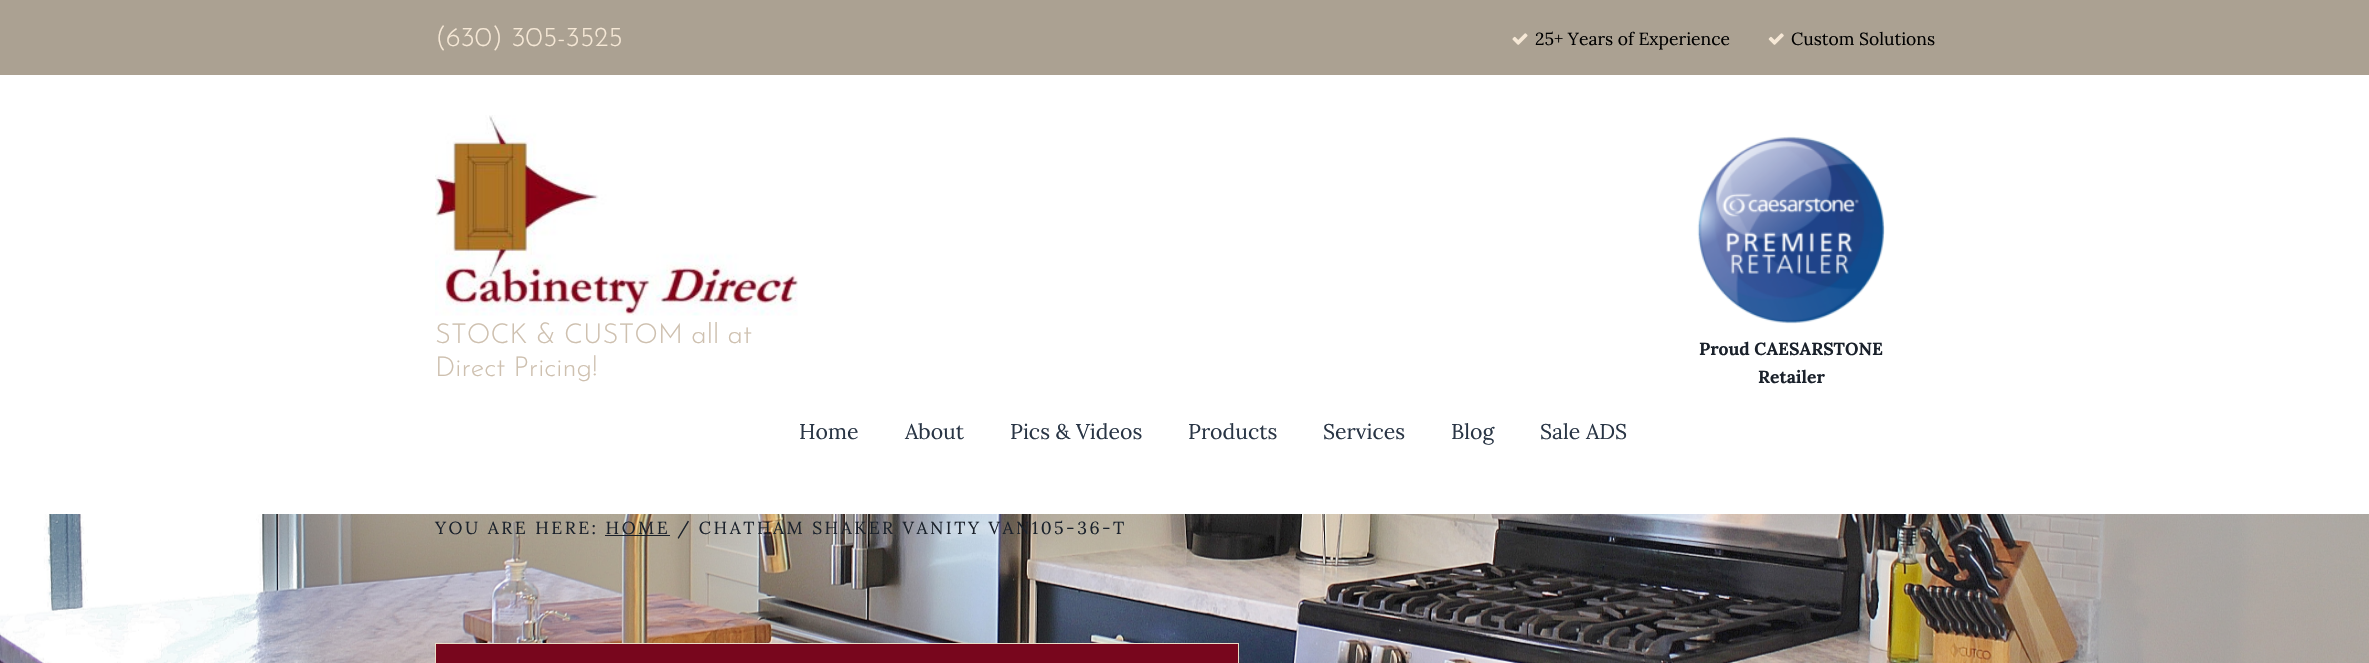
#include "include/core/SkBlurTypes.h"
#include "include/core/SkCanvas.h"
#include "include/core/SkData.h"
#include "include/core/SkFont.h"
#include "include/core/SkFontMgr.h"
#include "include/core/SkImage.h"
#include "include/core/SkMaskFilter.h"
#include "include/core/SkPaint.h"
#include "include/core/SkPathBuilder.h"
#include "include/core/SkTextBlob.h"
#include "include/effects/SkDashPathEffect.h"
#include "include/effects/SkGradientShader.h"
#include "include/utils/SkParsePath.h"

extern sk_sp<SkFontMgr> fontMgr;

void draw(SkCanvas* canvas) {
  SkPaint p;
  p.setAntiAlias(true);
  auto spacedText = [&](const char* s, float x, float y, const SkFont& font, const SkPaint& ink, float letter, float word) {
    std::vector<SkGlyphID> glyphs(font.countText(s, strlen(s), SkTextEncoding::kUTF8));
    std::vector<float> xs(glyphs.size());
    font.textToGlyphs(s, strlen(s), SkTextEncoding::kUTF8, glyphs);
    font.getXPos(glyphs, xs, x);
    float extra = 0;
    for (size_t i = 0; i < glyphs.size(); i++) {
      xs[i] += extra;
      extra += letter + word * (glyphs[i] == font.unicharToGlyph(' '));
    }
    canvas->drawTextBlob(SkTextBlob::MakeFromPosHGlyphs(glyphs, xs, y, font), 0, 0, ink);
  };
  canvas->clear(SK_ColorWHITE);
  p.setColor(SkColorSetRGB(171, 161, 146));
  canvas->drawRect(SkRect::MakeLTRB(0, 0, 2369, 75), p);
  canvas->drawImageRect(SkImages::DeferredFromEncodedData(SkData::MakeFromFileName("images/1.png")), SkRect::MakeLTRB(1512, 33, 1528, 45), SkSamplingOptions());
  canvas->drawImageRect(SkImages::DeferredFromEncodedData(SkData::MakeFromFileName("images/2.png")), SkRect::MakeLTRB(1768, 33, 1784, 45), SkSamplingOptions());
  canvas->drawImageRect(SkImages::DeferredFromEncodedData(SkData::MakeFromFileName("images/3.png")), SkRect::MakeLTRB(435, 115, 798, 316), SkSamplingOptions());
  canvas->drawImageRect(SkImages::DeferredFromEncodedData(SkData::MakeFromFileName("images/4.png")), SkRect::MakeLTRB(1697, 136, 1885, 324), SkSamplingOptions());
  canvas->drawImageRect(SkImages::DeferredFromEncodedData(SkData::MakeFromFileName("images/5.png")), SkRect::MakeLTRB(0, 514, 2369, 663), SkSamplingOptions());
  p.setColor(SkColorSetRGB(26, 33, 43));
  canvas->drawRect(SkRect::MakeLTRB(605, 535, 670, 536), p);
  p.setColor(SkColorSetRGB(120, 6, 29));
  canvas->drawRect(SkRect::MakeLTRB(435.5f, 643.5f, 1238.5f, 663.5f), p);
  p.setStyle(SkPaint::kStroke_Style);
  p.setStrokeWidth(1);
  p.setColor(SkColorSetRGB(236, 220, 199));
  canvas->drawRect(SkRect::MakeLTRB(435.5f, 643.5f, 1238.5f, 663.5f), p);
  SkFont font1(fontMgr->matchFamilyStyle("Josefin Sans", SkFontStyle(300, SkFontStyle::kNormal_Width, SkFontStyle::kUpright_Slant)), 27.5f);
  font1.setSubpixel(true);
  p.setStyle(SkPaint::kFill_Style);
  p.setColor(SkColorSetRGB(246, 232, 214));
  canvas->drawString("(630) 305-3525", 435, 46, font1, p);
  SkFont font2(fontMgr->matchFamilyStyle("Lora", SkFontStyle::Normal()), 17.5f);
  font2.setSubpixel(true);
  p.setColor(SK_ColorBLACK);
  canvas->drawString("25+ Years of Experience", 1535, 45, font2, p);
  canvas->drawString("Custom Solutions", 1791, 45, font2, p);
  p.setColor(SkColorSetRGB(206, 192, 175));
  canvas->drawString("STOCK & CUSTOM all at", 435, 343, font1, p);
  canvas->drawString("Direct Pricing!", 435, 376, font1, p);
  SkFont font3(fontMgr->matchFamilyStyle("Lora", SkFontStyle::Bold()), 17.5f);
  font3.setSubpixel(true);
  p.setColor(SkColorSetRGB(26, 33, 43));
  canvas->drawString("Proud CAESARSTONE", 1699, 355, font3, p);
  canvas->drawString("Retailer", 1758, 383, font3, p);
  SkFont font4(fontMgr->matchFamilyStyle("Lora", SkFontStyle::Normal()), 21.25f);
  font4.setSubpixel(true);
  p.setColor(SkColorSetRGB(41, 53, 69));
  canvas->drawString("Home", 799, 439, font4, p);
  canvas->drawString("About", 905, 439, font4, p);
  canvas->drawString("Pics & Videos", 1010, 439, font4, p);
  canvas->drawString("Products", 1188, 439, font4, p);
  canvas->drawString("Services", 1323, 439, font4, p);
  canvas->drawString("Blog", 1451, 439, font4, p);
  canvas->drawString("Sale ADS", 1540, 439, font4, p);
  p.setColor(SkColorSetRGB(26, 33, 43));
  spacedText("YOU ARE HERE: HOME / CHATHAM SHAKER VANITY VAN105-36-T", 435, 534, font2, p, 2.5f, 0);
}
